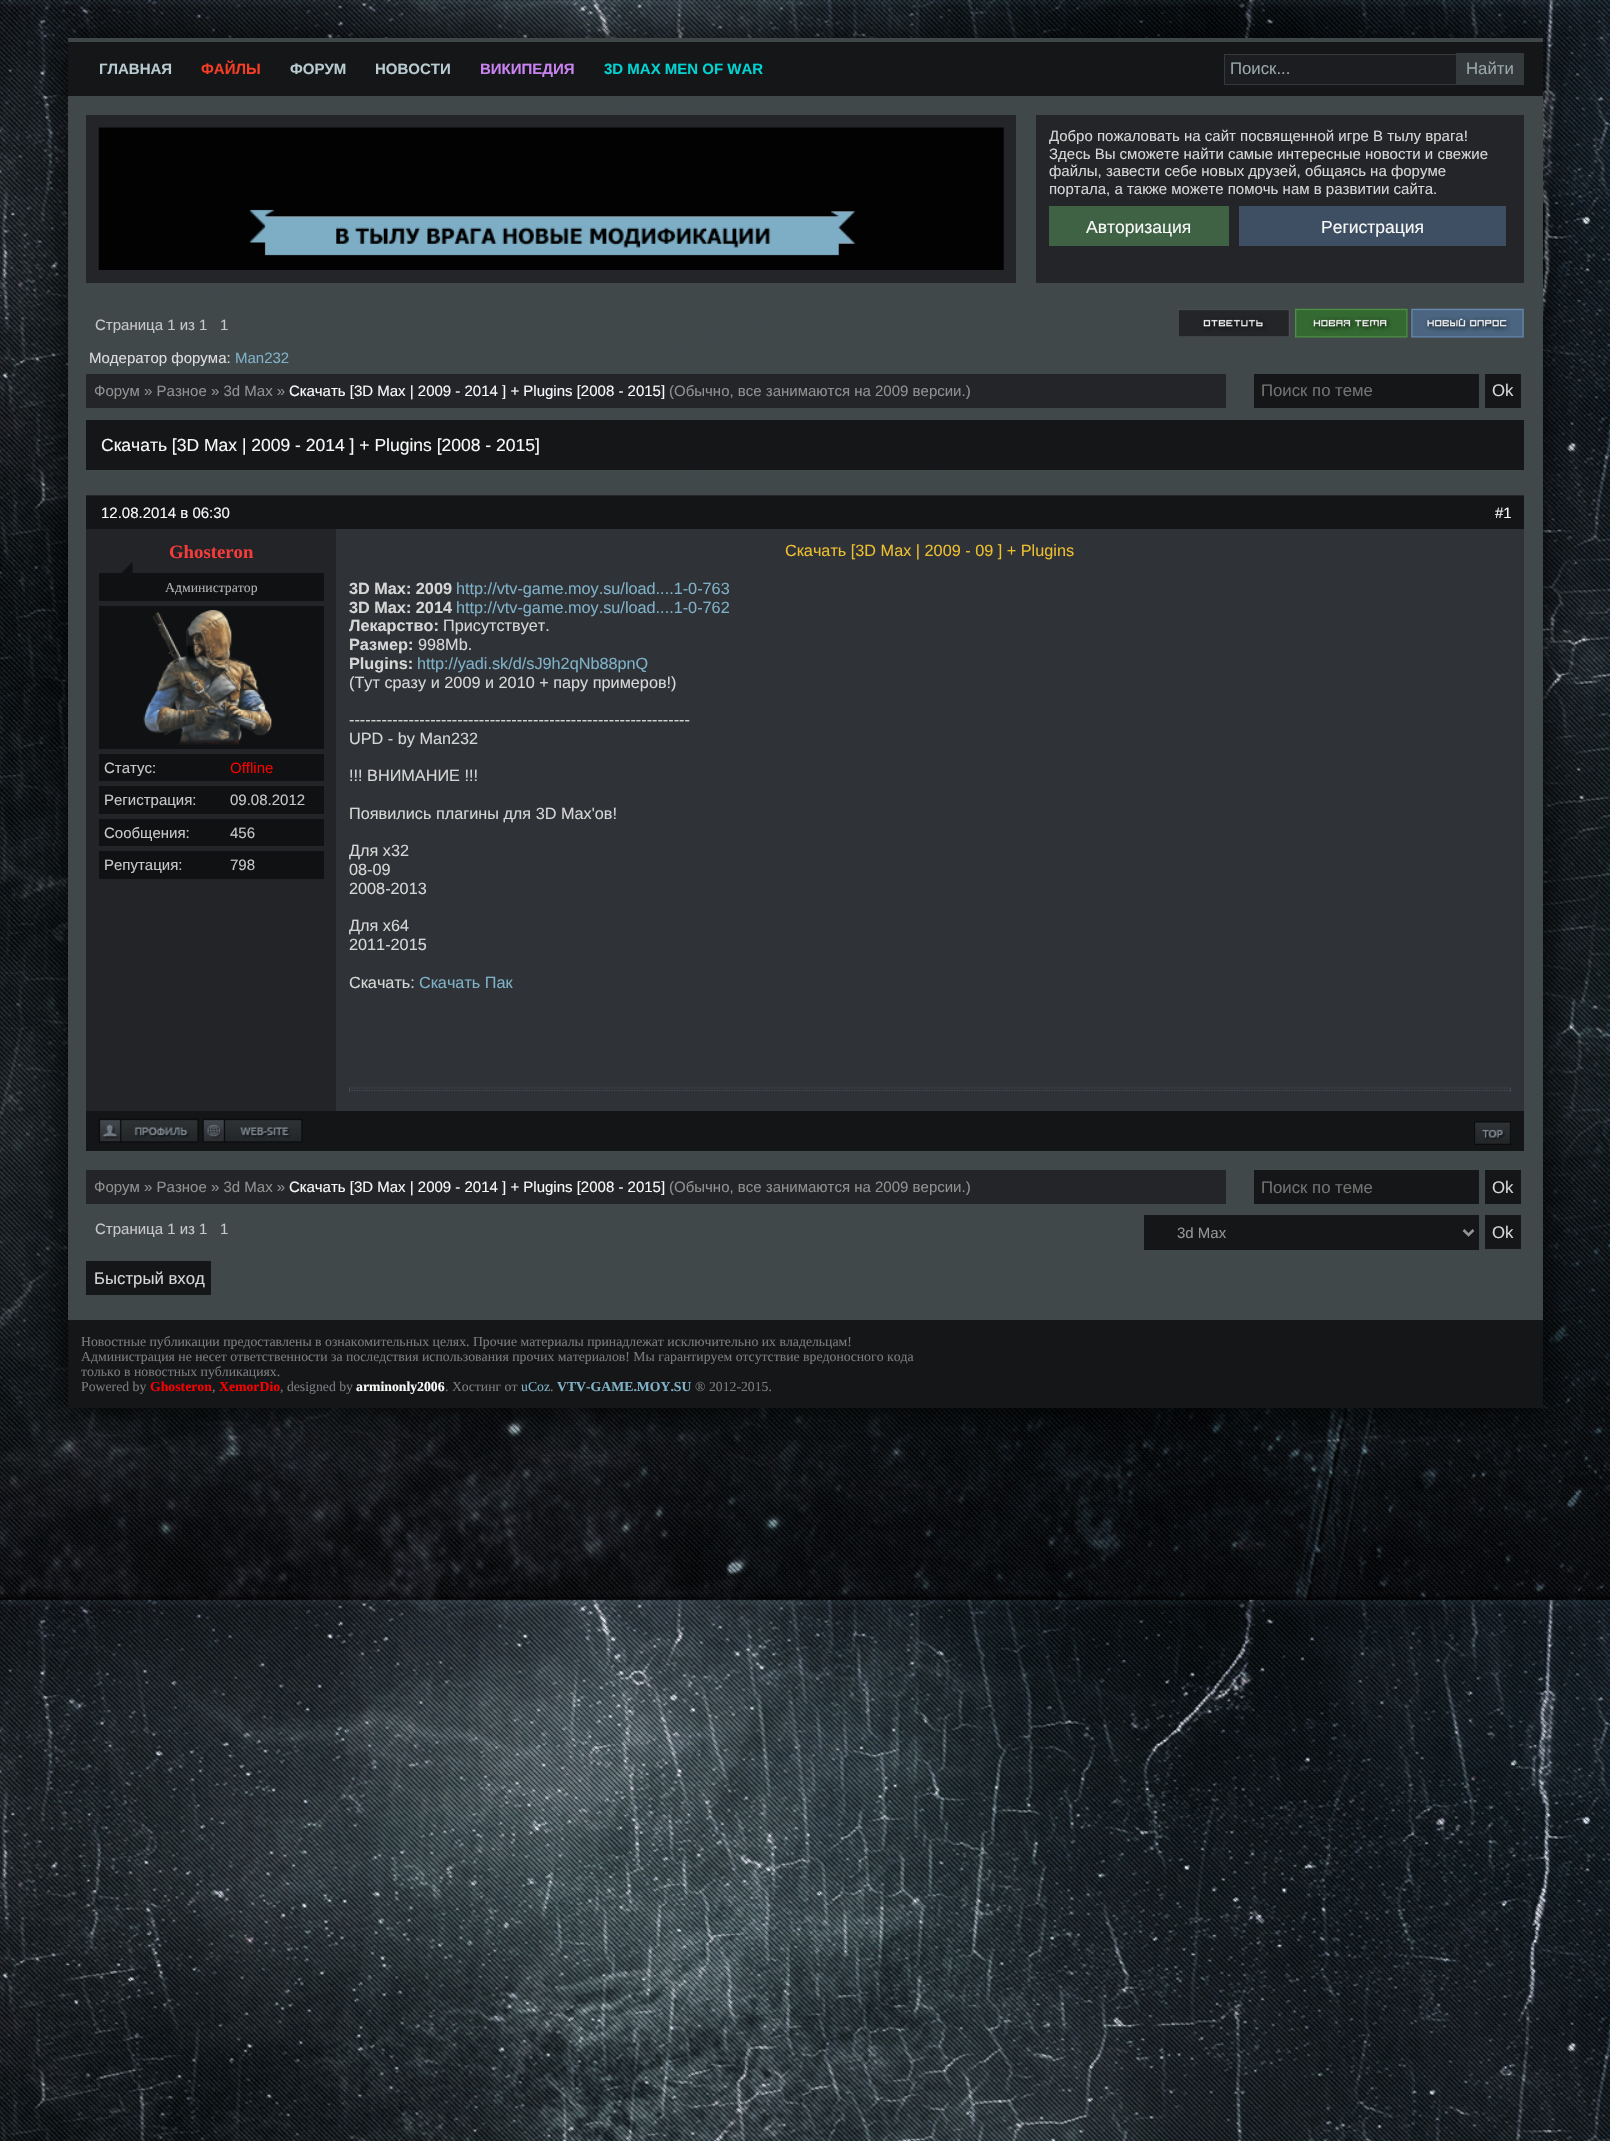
#include "include/core/SkBlurTypes.h"
#include "include/core/SkCanvas.h"
#include "include/core/SkData.h"
#include "include/core/SkFont.h"
#include "include/core/SkFontMgr.h"
#include "include/core/SkImage.h"
#include "include/core/SkMaskFilter.h"
#include "include/core/SkPaint.h"
#include "include/core/SkPathBuilder.h"
#include "include/core/SkTextBlob.h"
#include "include/effects/SkDashPathEffect.h"
#include "include/effects/SkGradientShader.h"
#include "include/utils/SkParsePath.h"

extern sk_sp<SkFontMgr> fontMgr;

void draw(SkCanvas* canvas) {
  SkPaint p;
  p.setAntiAlias(true);
  canvas->clear(SK_ColorWHITE);
  canvas->drawImageRect(SkImages::DeferredFromEncodedData(SkData::MakeFromFileName("images/1.png")), SkRect::MakeLTRB(0, 0, 1610, 2141), SkSamplingOptions());
  canvas->save();
  canvas->clipPath(SkPathBuilder(SkPathFillType::kEvenOdd).moveTo(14, 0).lineTo(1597, 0).lineTo(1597, 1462).lineTo(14, 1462).close().moveTo(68, 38).lineTo(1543, 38).lineTo(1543, 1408).lineTo(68, 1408).close().detach(), true);
  p.setColor(SkColorSetARGB(245, 0, 0, 0));
  p.setMaskFilter(SkMaskFilter::MakeBlur(kNormal_SkBlurStyle, 17.5f));
  canvas->drawRect(SkRect::MakeLTRB(68, 38, 1543, 1408), p);
  p.setMaskFilter(nullptr);
  canvas->restore();
  p.setColor(SkColorSetARGB(245, 65, 72, 74));
  canvas->drawRect(SkRect::MakeLTRB(68, 42, 1543, 1408), p);
  p.setColor(SkColorSetARGB(245, 19, 20, 21));
  canvas->drawRect(SkRect::MakeLTRB(68, 42, 1543, 96), p);
  p.setColor(SkColorSetRGB(63, 70, 72));
  canvas->drawRect(SkRect::MakeLTRB(68, 38, 1543, 42), p);
  p.setColor(SkColorSetRGB(27, 29, 32));
  canvas->drawRect(SkRect::MakeLTRB(1224, 55, 1456, 84), p);
  p.setColor(SkColorSetRGB(52, 58, 60));
  canvas->drawRect(SkRect::MakeLTRB(1224, 54, 1456, 55), p);
  canvas->drawRect(SkRect::MakeLTRB(1224, 84, 1456, 85), p);
  p.setColor(SkColorSetARGB(245, 53, 59, 61));
  canvas->drawRect(SkRect::MakeLTRB(1224, 54, 1225, 85), p);
  p.setColor(SkColorSetRGB(52, 58, 59));
  canvas->drawRect(SkRect::MakeLTRB(1456.5f, 53.5f, 1523.5f, 84.5f), p);
  p.setStyle(SkPaint::kStroke_Style);
  p.setStrokeWidth(1);
  p.setColor(SkColorSetRGB(53, 59, 61));
  canvas->drawRect(SkRect::MakeLTRB(1456.5f, 53.5f, 1523.5f, 84.5f), p);
  p.setStyle(SkPaint::kFill_Style);
  p.setColor(SkColorSetARGB(245, 65, 72, 74));
  canvas->drawRect(SkRect::MakeLTRB(68, 96, 1543, 1320), p);
  p.setColor(SkColorSetRGB(35, 37, 40));
  canvas->drawRect(SkRect::MakeLTRB(86, 115, 1016, 283), p);
  canvas->drawImageRect(SkImages::DeferredFromEncodedData(SkData::MakeFromFileName("images/2.png")), SkRect::MakeLTRB(98, 127, 1004, 270), SkSamplingOptions());
  canvas->drawRect(SkRect::MakeLTRB(1036, 115, 1524, 283), p);
  p.setColor(SkColorSetRGB(63, 98, 68));
  canvas->drawRect(SkRect::MakeLTRB(1049, 206, 1229, 246), p);
  p.setColor(SkColorSetRGB(63, 79, 99));
  canvas->drawRect(SkRect::MakeLTRB(1239, 206, 1506, 246), p);
  canvas->drawImageRect(SkImages::DeferredFromEncodedData(SkData::MakeFromFileName("images/3.png")), SkRect::MakeLTRB(1178, 309, 1290, 337), SkSamplingOptions());
  canvas->drawImageRect(SkImages::DeferredFromEncodedData(SkData::MakeFromFileName("images/4.png")), SkRect::MakeLTRB(1295, 308, 1408, 338), SkSamplingOptions());
  canvas->drawImageRect(SkImages::DeferredFromEncodedData(SkData::MakeFromFileName("images/5.png")), SkRect::MakeLTRB(1411, 308, 1524, 338), SkSamplingOptions());
  p.setColor(SkColorSetRGB(35, 37, 40));
  canvas->drawRect(SkRect::MakeLTRB(86, 374, 1226, 408), p);
  p.setColor(SkColorSetRGB(21, 22, 23));
  canvas->drawRect(SkRect::MakeLTRB(1254, 374, 1479, 408), p);
  canvas->drawRect(SkRect::MakeLTRB(1485, 374, 1521, 408), p);
  canvas->drawRect(SkRect::MakeLTRB(86, 420, 1524, 470), p);
  p.setColor(SkColorSetRGB(20, 21, 22));
  canvas->drawRect(SkRect::MakeLTRB(86, 496, 1524, 529), p);
  p.setColor(SkColorSetRGB(36, 38, 41));
  canvas->drawRect(SkRect::MakeLTRB(86, 495, 1524, 496), p);
  p.setColor(SkColorSetRGB(35, 36, 39));
  canvas->drawRect(SkRect::MakeLTRB(86, 529, 336, 1111), p);
  canvas->drawImageRect(SkImages::DeferredFromEncodedData(SkData::MakeFromFileName("images/6.png")), SkRect::MakeLTRB(122, 562, 133, 573), SkSamplingOptions());
  p.setColor(SkColorSetRGB(16, 17, 18));
  canvas->drawRect(SkRect::MakeLTRB(99, 573, 324, 601), p);
  canvas->drawImageRect(SkImages::DeferredFromEncodedData(SkData::MakeFromFileName("images/7.png")), SkRect::MakeLTRB(172, 584, 222, 592), SkSamplingOptions());
  canvas->drawRect(SkRect::MakeLTRB(99, 606, 324, 749), p);
  canvas->drawImageRect(SkImages::DeferredFromEncodedData(SkData::MakeFromFileName("images/8.png")), SkRect::MakeLTRB(143, 610, 272, 745), SkSamplingOptions());
  canvas->drawRect(SkRect::MakeLTRB(99, 754, 324, 781), p);
  canvas->drawRect(SkRect::MakeLTRB(99, 786, 324, 814), p);
  canvas->drawRect(SkRect::MakeLTRB(99, 819, 324, 846), p);
  canvas->drawRect(SkRect::MakeLTRB(99, 851, 324, 879), p);
  p.setColor(SkColorSetRGB(47, 50, 54));
  canvas->drawRect(SkRect::MakeLTRB(336, 529, 1524, 1111), p);
  p.setStyle(SkPaint::kStroke_Style);
  p.setStrokeWidth(1.2f);
  p.setColor(SkColorSetRGB(70, 75, 82));
  p.setPathEffect(SkDashPathEffect::Make({{1.25f, 1.25f}}, 0));
  canvas->drawPath(SkPathBuilder().moveTo(349, 1088).lineTo(1511, 1088).detach(), p);
  p.setPathEffect(nullptr);
  p.setStyle(SkPaint::kFill_Style);
  p.setColor(SkColorSetARGB(245, 71, 76, 83));
  canvas->drawRect(SkRect::MakeLTRB(1510, 1088, 1511, 1092), p);
  p.setStyle(SkPaint::kStroke_Style);
  p.setColor(SkColorSetRGB(70, 75, 82));
  p.setPathEffect(SkDashPathEffect::Make({{1.25f, 1.25f}}, 0));
  canvas->drawPath(SkPathBuilder().moveTo(349, 1090.5f).lineTo(1511, 1090.5f).detach(), p);
  p.setPathEffect(nullptr);
  p.setStyle(SkPaint::kFill_Style);
  p.setColor(SkColorSetARGB(245, 71, 76, 83));
  canvas->drawRect(SkRect::MakeLTRB(349, 1088, 350, 1092), p);
  p.setColor(SkColorSetRGB(20, 21, 22));
  canvas->drawRect(SkRect::MakeLTRB(86, 1111, 1524, 1151), p);
  canvas->drawImageRect(SkImages::DeferredFromEncodedData(SkData::MakeFromFileName("images/9.png")), SkRect::MakeLTRB(98, 1118, 199, 1143), SkSamplingOptions());
  canvas->drawImageRect(SkImages::DeferredFromEncodedData(SkData::MakeFromFileName("images/10.png")), SkRect::MakeLTRB(202, 1118, 303, 1143), SkSamplingOptions());
  canvas->drawImageRect(SkImages::DeferredFromEncodedData(SkData::MakeFromFileName("images/11.png")), SkRect::MakeLTRB(1474, 1121, 1511, 1145), SkSamplingOptions());
  p.setColor(SkColorSetRGB(35, 37, 40));
  canvas->drawRect(SkRect::MakeLTRB(86, 1170, 1226, 1204), p);
  p.setColor(SkColorSetRGB(21, 22, 23));
  canvas->drawRect(SkRect::MakeLTRB(1254, 1170, 1479, 1204), p);
  canvas->drawRect(SkRect::MakeLTRB(1485, 1170, 1521, 1204), p);
  canvas->drawRect(SkRect::MakeLTRB(1144, 1215, 1479, 1250), p);
  p.setStyle(SkPaint::kStroke_Style);
  p.setStrokeWidth(2.5f);
  p.setColor(SkColorSetRGB(149, 149, 149));
  canvas->drawPath(SkPathBuilder().moveTo(1463.5f, 1230).lineTo(1468.5f, 1235).lineTo(1473.5f, 1230).detach(), p);
  p.setStyle(SkPaint::kFill_Style);
  p.setColor(SkColorSetRGB(21, 22, 23));
  canvas->drawRect(SkRect::MakeLTRB(1485, 1215, 1521, 1249), p);
  canvas->drawRect(SkRect::MakeLTRB(86, 1261, 211, 1295), p);
  p.setColor(SkColorSetARGB(245, 19, 20, 21));
  canvas->drawRect(SkRect::MakeLTRB(68, 1320, 1543, 1408), p);
  SkFont font1(fontMgr->matchFamilyStyle("Liberation Sans", SkFontStyle::Bold()), 15);
  font1.setSubpixel(true);
  p.setColor(SkColorSetRGB(184, 203, 209));
  canvas->drawString("ГЛАВНАЯ", 99, 74, font1, p);
  p.setColor(SkColorSetRGB(246, 61, 37));
  canvas->drawString("ФАЙЛЫ", 201, 74, font1, p);
  p.setColor(SkColorSetRGB(184, 203, 209));
  canvas->drawString("ФОРУМ", 290, 74, font1, p);
  canvas->drawString("НОВОСТИ", 375, 74, font1, p);
  p.setColor(SkColorSetRGB(200, 131, 240));
  canvas->drawString("ВИКИПЕДИЯ", 480, 74, font1, p);
  p.setColor(SkColorSetRGB(1, 211, 211));
  canvas->drawString("3D MAX MEN OF WAR", 604, 74, font1, p);
  SkFont font2(fontMgr->matchFamilyStyle("Liberation Sans", SkFontStyle::Normal()), 16.75f);
  font2.setSubpixel(true);
  p.setColor(SkColorSetRGB(153, 166, 170));
  canvas->drawString("Поиск...", 1230, 74, font2, p);
  canvas->drawString("Найти", 1466, 74, font2, p);
  SkFont font3(fontMgr->matchFamilyStyle("Liberation Sans", SkFontStyle::Normal()), 15);
  font3.setSubpixel(true);
  p.setColor(SkColorSetRGB(214, 214, 214));
  canvas->drawString("Добро пожаловать на сайт посвященной игре В тылу врага!", 1049, 141, font3, p);
  canvas->drawString("Здесь Вы сможете найти самые интересные новости и свежие", 1049, 159, font3, p);
  canvas->drawString("файлы, завести себе новых друзей, общаясь на форуме", 1049, 176, font3, p);
  canvas->drawString("портала, а также можете помочь нам в развитии сайта.", 1049, 194, font3, p);
  SkFont font4(fontMgr->matchFamilyStyle("Liberation Sans", SkFontStyle::Normal()), 17.5f);
  font4.setSubpixel(true);
  p.setColor(SkColorSetRGB(247, 249, 248));
  canvas->drawString("Авторизация", 1086, 233, font4, p);
  canvas->drawString("Регистрация", 1321, 233, font4, p);
  p.setColor(SkColorSetRGB(198, 199, 199));
  canvas->drawString("Страница 1 из 1", 95, 330, font3, p);
  canvas->drawString("1", 220, 330, font3, p);
  p.setColor(SkColorSetRGB(220, 220, 220));
  canvas->drawString("Модератор форума:", 89, 363, font3, p);
  p.setColor(SkColorSetRGB(126, 176, 199));
  canvas->drawString("Man232", 235, 363, font3, p);
  p.setColor(SkColorSetRGB(143, 144, 144));
  canvas->drawString("Форум » Разное » 3d Max »", 94, 396, font3, p);
  p.setColor(SkColorSetRGB(247, 249, 248));
  canvas->drawString("Скачать [3D Max | 2009 - 2014 ] + Plugins [2008 - 2015]", 289, 396, font3, p);
  p.setColor(SkColorSetRGB(143, 144, 144));
  canvas->drawString("(Обычно, все занимаются на 2009 версии.)", 669, 396, font3, p);
  p.setColor(SkColorSetRGB(113, 113, 113));
  canvas->drawString("Поиск по теме", 1261, 396, font2, p);
  p.setColor(SkColorSetRGB(214, 214, 214));
  canvas->drawString("Ok", 1492, 396, font2, p);
  p.setColor(SkColorSetRGB(247, 249, 248));
  canvas->drawString("Скачать [3D Max | 2009 - 2014 ] + Plugins [2008 - 2015]", 101, 451, font4, p);
  canvas->drawString("12.08.2014 в 06:30", 101, 518, font3, p);
  canvas->drawString("#1", 1495, 518, font3, p);
  SkFont font5(fontMgr->matchFamilyStyle("Liberation Serif", SkFontStyle::Bold()), 18.75f);
  font5.setSubpixel(true);
  p.setColor(SkColorSetRGB(246, 59, 59));
  canvas->drawString("Ghosteron", 169, 558, font5, p);
  SkFont font6(fontMgr->matchFamilyStyle("Liberation Serif", SkFontStyle::Normal()), 13.75f);
  font6.setSubpixel(true);
  p.setColor(SkColorSetRGB(174, 175, 175));
  canvas->drawString("Администратор", 165, 592, font6, p);
  p.setColor(SkColorSetRGB(198, 199, 199));
  canvas->drawString("Статус:", 104, 773, font3, p);
  p.setColor(SkColorSetRGB(245, 1, 1));
  canvas->drawString("Offline", 230, 773, font3, p);
  p.setColor(SkColorSetRGB(198, 199, 199));
  canvas->drawString("Регистрация:", 104, 805, font3, p);
  canvas->drawString("09.08.2012", 230, 805, font3, p);
  canvas->drawString("Сообщения:", 104, 838, font3, p);
  canvas->drawString("456", 230, 838, font3, p);
  canvas->drawString("Репутация:", 104, 870, font3, p);
  canvas->drawString("798", 230, 870, font3, p);
  SkFont font7(fontMgr->matchFamilyStyle("Liberation Sans", SkFontStyle::Normal()), 16.25f);
  font7.setSubpixel(true);
  p.setColor(SkColorSetRGB(236, 190, 48));
  canvas->drawString("Скачать [3D Max | 2009 - 09 ] + Plugins", 785, 556, font7, p);
  SkFont font8(fontMgr->matchFamilyStyle("Liberation Sans", SkFontStyle::Bold()), 16.25f);
  font8.setSubpixel(true);
  p.setColor(SkColorSetRGB(214, 214, 214));
  canvas->drawString("3D Max: 2009", 349, 594, font8, p);
  p.setColor(SkColorSetRGB(126, 176, 199));
  canvas->drawString("http://vtv-game.moy.su/load....1-0-763", 456, 594, font7, p);
  p.setColor(SkColorSetRGB(214, 214, 214));
  canvas->drawString("3D Max: 2014", 349, 613, font8, p);
  p.setColor(SkColorSetRGB(126, 176, 199));
  canvas->drawString("http://vtv-game.moy.su/load....1-0-762", 456, 613, font7, p);
  p.setColor(SkColorSetRGB(214, 214, 214));
  canvas->drawString("Лекарство:", 349, 631, font8, p);
  canvas->drawString("Присутствует.", 443, 631, font7, p);
  canvas->drawString("Размер:", 349, 650, font8, p);
  canvas->drawString("998Mb.", 418, 650, font7, p);
  canvas->drawString("Plugins:", 349, 669, font8, p);
  p.setColor(SkColorSetRGB(126, 176, 199));
  canvas->drawString("http://yadi.sk/d/sJ9h2qNb88pnQ", 417, 669, font7, p);
  p.setColor(SkColorSetRGB(214, 214, 214));
  canvas->drawString("(Тут сразу и 2009 и 2010 + пару примеров!)", 349, 688, font7, p);
  canvas->drawString("---------------------------------------------------------------", 349, 725, font7, p);
  canvas->drawString("UPD - by Man232", 349, 744, font7, p);
  canvas->drawString("!!! ВНИМАНИЕ !!!", 349, 781, font7, p);
  canvas->drawString("Появились плагины для 3D Max'ов!", 349, 819, font7, p);
  canvas->drawString("Для х32", 349, 856, font7, p);
  canvas->drawString("08-09", 349, 875, font7, p);
  canvas->drawString("2008-2013", 349, 894, font7, p);
  canvas->drawString("Для х64", 349, 931, font7, p);
  canvas->drawString("2011-2015", 349, 950, font7, p);
  canvas->drawString("Скачать:", 349, 988, font7, p);
  p.setColor(SkColorSetRGB(126, 176, 199));
  canvas->drawString("Скачать Пак", 419, 988, font7, p);
  p.setColor(SkColorSetRGB(143, 144, 144));
  canvas->drawString("Форум » Разное » 3d Max »", 94, 1192, font3, p);
  p.setColor(SkColorSetRGB(247, 249, 248));
  canvas->drawString("Скачать [3D Max | 2009 - 2014 ] + Plugins [2008 - 2015]", 289, 1192, font3, p);
  p.setColor(SkColorSetRGB(143, 144, 144));
  canvas->drawString("(Обычно, все занимаются на 2009 версии.)", 669, 1192, font3, p);
  p.setColor(SkColorSetRGB(113, 113, 113));
  canvas->drawString("Поиск по теме", 1261, 1193, font2, p);
  p.setColor(SkColorSetRGB(214, 214, 214));
  canvas->drawString("Ok", 1492, 1193, font2, p);
  p.setColor(SkColorSetRGB(198, 199, 199));
  canvas->drawString("Страница 1 из 1", 95, 1234, font3, p);
  canvas->drawString("1", 220, 1234, font3, p);
  p.setColor(SkColorSetRGB(149, 149, 149));
  canvas->drawString("3d Max", 1177, 1238, font3, p);
  p.setColor(SkColorSetRGB(214, 214, 214));
  canvas->drawString("Ok", 1492, 1238, font2, p);
  canvas->drawString("Быстрый вход", 94, 1284, font2, p);
  p.setColor(SkColorSetRGB(120, 123, 126));
  canvas->drawString("Новостные публикации предоставлены в ознакомительных целях. Прочие материалы принадлежат исключительно их владельцам!", 81, 1346, font6, p);
  canvas->drawString("Администрация не несет ответственности за последствия использования прочих материалов! Мы гарантируем отсутствие вредоносного кода", 81, 1361, font6, p);
  canvas->drawString("только в новостных публикациях.", 81, 1376, font6, p);
  canvas->drawString("Powered by", 81, 1391, font6, p);
  SkFont font9(fontMgr->matchFamilyStyle("Liberation Serif", SkFontStyle::Bold()), 13.75f);
  font9.setSubpixel(true);
  p.setColor(SkColorSetRGB(245, 1, 1));
  canvas->drawString("Ghosteron", 150, 1391, font9, p);
  p.setColor(SkColorSetRGB(120, 123, 126));
  canvas->drawString(",", 212, 1391, font6, p);
  p.setColor(SkColorSetRGB(245, 1, 1));
  canvas->drawString("XemorDio", 219, 1391, font9, p);
  p.setColor(SkColorSetRGB(120, 123, 126));
  canvas->drawString(", designed by", 280, 1391, font6, p);
  p.setColor(SkColorSetRGB(247, 249, 248));
  canvas->drawString("arminonly2006", 356, 1391, font9, p);
  p.setColor(SkColorSetRGB(120, 123, 126));
  canvas->drawString(". Хостинг от", 445, 1391, font6, p);
  p.setColor(SkColorSetRGB(126, 176, 199));
  canvas->drawString("uCoz", 521, 1391, font6, p);
  p.setColor(SkColorSetRGB(120, 123, 126));
  canvas->drawString(".", 550, 1391, font6, p);
  p.setColor(SkColorSetRGB(126, 176, 199));
  canvas->drawString("VTV-GAME.MOY.SU", 557, 1391, font9, p);
  p.setColor(SkColorSetRGB(120, 123, 126));
  canvas->drawString("® 2012-2015.", 695, 1391, font6, p);
}
